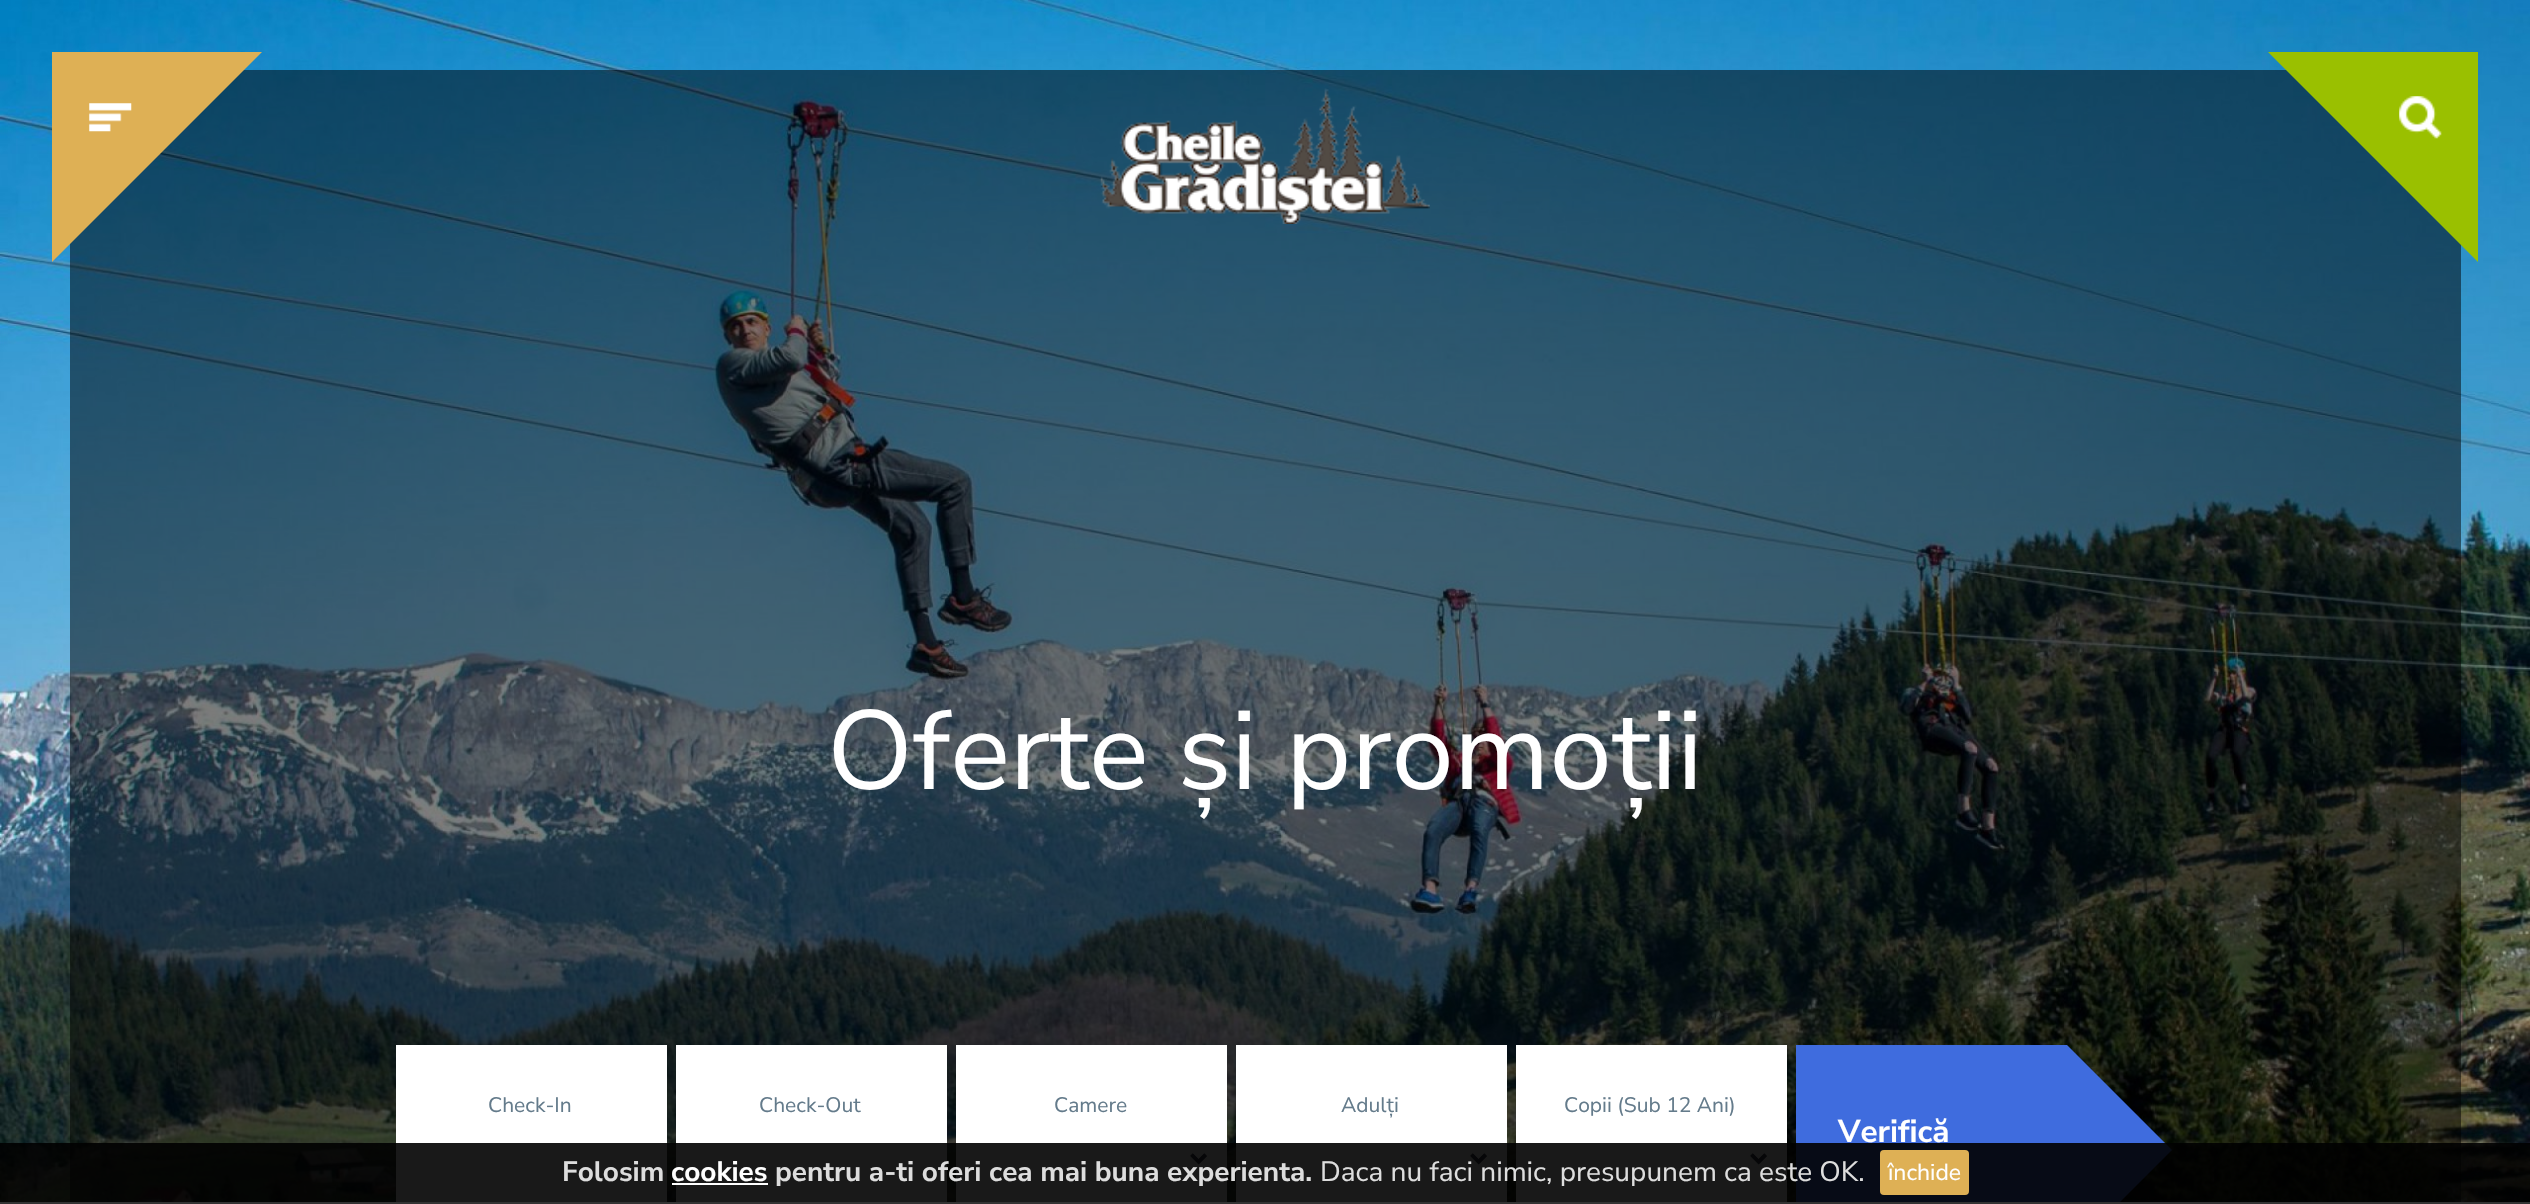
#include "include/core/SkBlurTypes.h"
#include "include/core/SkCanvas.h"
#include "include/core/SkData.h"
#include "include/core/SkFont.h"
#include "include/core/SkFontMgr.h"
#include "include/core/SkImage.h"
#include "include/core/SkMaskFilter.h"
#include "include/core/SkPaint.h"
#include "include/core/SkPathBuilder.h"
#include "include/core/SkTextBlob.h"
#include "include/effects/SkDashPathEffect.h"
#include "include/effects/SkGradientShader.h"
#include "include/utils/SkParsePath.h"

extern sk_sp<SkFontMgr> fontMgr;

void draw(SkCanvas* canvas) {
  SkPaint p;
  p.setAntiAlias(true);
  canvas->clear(SK_ColorWHITE);
  canvas->drawImageRect(SkImages::DeferredFromEncodedData(SkData::MakeFromFileName("images/1.png")), SkRect::MakeLTRB(0, 0, 2530, 1202), SkSamplingOptions());
  p.setColor(SkColorSetARGB(128, 0, 0, 0));
  canvas->drawRect(SkRect::MakeLTRB(70, 70, 2461, 1202), p);
  p.setColor(SkColorSetRGB(222, 176, 85));
  canvas->drawPath(SkPathBuilder().moveTo(52, 52).lineTo(262, 52).lineTo(52, 262).close().detach(), p);
  canvas->drawImageRect(SkImages::DeferredFromEncodedData(SkData::MakeFromFileName("images/2.png")), SkRect::MakeLTRB(89, 103, 132, 132), SkSamplingOptions());
  canvas->drawImageRect(SkImages::DeferredFromEncodedData(SkData::MakeFromFileName("images/3.png")), SkRect::MakeLTRB(1100, 88, 1430, 224), SkSamplingOptions());
  p.setColor(SkColorSetRGB(154, 192, 0));
  canvas->drawPath(SkPathBuilder().moveTo(2478, 52).lineTo(2478, 262).lineTo(2268, 52).close().detach(), p);
  canvas->drawImageRect(SkImages::DeferredFromEncodedData(SkData::MakeFromFileName("images/4.png")), SkRect::MakeLTRB(2399, 96, 2442, 139), SkSamplingOptions());
  p.setColor(SK_ColorWHITE);
  canvas->drawRect(SkRect::MakeLTRB(396, 1045, 667, 1202), p);
  canvas->drawRect(SkRect::MakeLTRB(676, 1045, 947, 1202), p);
  canvas->drawRect(SkRect::MakeLTRB(956, 1045, 1227, 1202), p);
  canvas->drawImageRect(SkImages::DeferredFromEncodedData(SkData::MakeFromFileName("images/5.png")), SkRect::MakeLTRB(1190, 1153, 1207, 1165), SkSamplingOptions());
  p.setStyle(SkPaint::kStroke_Style);
  p.setStrokeWidth(3.5f);
  p.setColor(SkColorSetRGB(53, 61, 76));
  canvas->drawPath(SkPathBuilder().moveTo(1191.5f, 1154.5f).lineTo(1198.5f, 1161.5f).lineTo(1205.5f, 1154.5f).detach(), p);
  p.setStyle(SkPaint::kFill_Style);
  p.setColor(SK_ColorWHITE);
  canvas->drawRect(SkRect::MakeLTRB(1236, 1045, 1507, 1202), p);
  canvas->drawImageRect(SkImages::DeferredFromEncodedData(SkData::MakeFromFileName("images/5.png")), SkRect::MakeLTRB(1470, 1153, 1487, 1165), SkSamplingOptions());
  p.setStyle(SkPaint::kStroke_Style);
  p.setColor(SkColorSetRGB(53, 61, 76));
  canvas->drawPath(SkPathBuilder().moveTo(1471.5f, 1154.5f).lineTo(1478.5f, 1161.5f).lineTo(1485.5f, 1154.5f).detach(), p);
  p.setStyle(SkPaint::kFill_Style);
  p.setColor(SK_ColorWHITE);
  canvas->drawRect(SkRect::MakeLTRB(1516, 1045, 1787, 1202), p);
  canvas->drawImageRect(SkImages::DeferredFromEncodedData(SkData::MakeFromFileName("images/5.png")), SkRect::MakeLTRB(1750, 1153, 1767, 1165), SkSamplingOptions());
  p.setStyle(SkPaint::kStroke_Style);
  p.setColor(SkColorSetRGB(53, 61, 76));
  canvas->drawPath(SkPathBuilder().moveTo(1751.5f, 1154.5f).lineTo(1758.5f, 1161.5f).lineTo(1765.5f, 1154.5f).detach(), p);
  p.setStyle(SkPaint::kFill_Style);
  p.setColor(SkColorSetRGB(63, 108, 222));
  canvas->drawRect(SkRect::MakeLTRB(1796, 1045, 2067, 1202), p);
  canvas->drawPath(SkPathBuilder().moveTo(2067, 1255).lineTo(2067, 1045).lineTo(2172, 1150).close().detach(), p);
  p.setColor(SkColorSetARGB(230, 0, 0, 0));
  canvas->drawRect(SkRect::MakeLTRB(0, 1143, 2530, 1202), p);
  p.setColor(SkColorSetRGB(51, 51, 51));
  canvas->drawRect(SkRect::MakeLTRB(0, 1202, 2530, 1204), p);
  p.setColor(SK_ColorWHITE);
  canvas->drawRect(SkRect::MakeLTRB(672, 1183, 768, 1185), p);
  p.setColor(SkColorSetRGB(222, 176, 85));
  canvas->drawRoundRect(SkRect::MakeLTRB(1880, 1150, 1969, 1195), 4, 4, p);
  SkFont font1(fontMgr->matchFamilyStyle("Nunito Sans", SkFontStyle::Normal()), 112);
  font1.setSubpixel(true);
  p.setColor(SK_ColorWHITE);
  canvas->drawString("Oferte și promoții", 827, 789, font1, p);
  SkFont font2(fontMgr->matchFamilyStyle("Nunito Sans", SkFontStyle::Normal()), 21);
  font2.setSubpixel(true);
  p.setColor(SkColorSetRGB(100, 123, 139));
  canvas->drawString("Check-In", 488, 1112, font2, p);
  canvas->drawString("Check-Out", 759, 1112, font2, p);
  canvas->drawString("Camere", 1054, 1112, font2, p);
  canvas->drawString("Adulți", 1341, 1112, font2, p);
  canvas->drawString("Copii (Sub 12 Ani)", 1564, 1112, font2, p);
  SkFont font3(fontMgr->matchFamilyStyle("Nunito Sans", SkFontStyle::Bold()), 31.5f);
  font3.setSubpixel(true);
  p.setColor(SK_ColorWHITE);
  canvas->drawString("Verifică", 1838, 1142, font3, p);
  SkFont font4(fontMgr->matchFamilyStyle("Nunito Sans", SkFontStyle::Bold()), 28);
  font4.setSubpixel(true);
  p.setColor(SkColorSetRGB(221, 221, 221));
  canvas->drawString("Folosim", 562, 1181, font4, p);
  p.setColor(SK_ColorWHITE);
  canvas->drawString("cookies", 671, 1181, font4, p);
  p.setColor(SkColorSetRGB(221, 221, 221));
  canvas->drawString("pentru a-ti oferi cea mai buna experienta.", 775, 1181, font4, p);
  SkFont font5(fontMgr->matchFamilyStyle("Nunito Sans", SkFontStyle::Normal()), 28);
  font5.setSubpixel(true);
  canvas->drawString("Daca nu faci nimic, presupunem ca este OK.", 1320, 1181, font5, p);
  SkFont font6(fontMgr->matchFamilyStyle("Nunito Sans", SkFontStyle::Normal()), 23);
  font6.setSubpixel(true);
  p.setColor(SK_ColorWHITE);
  canvas->drawString("închide", 1888, 1180, font6, p);
}
